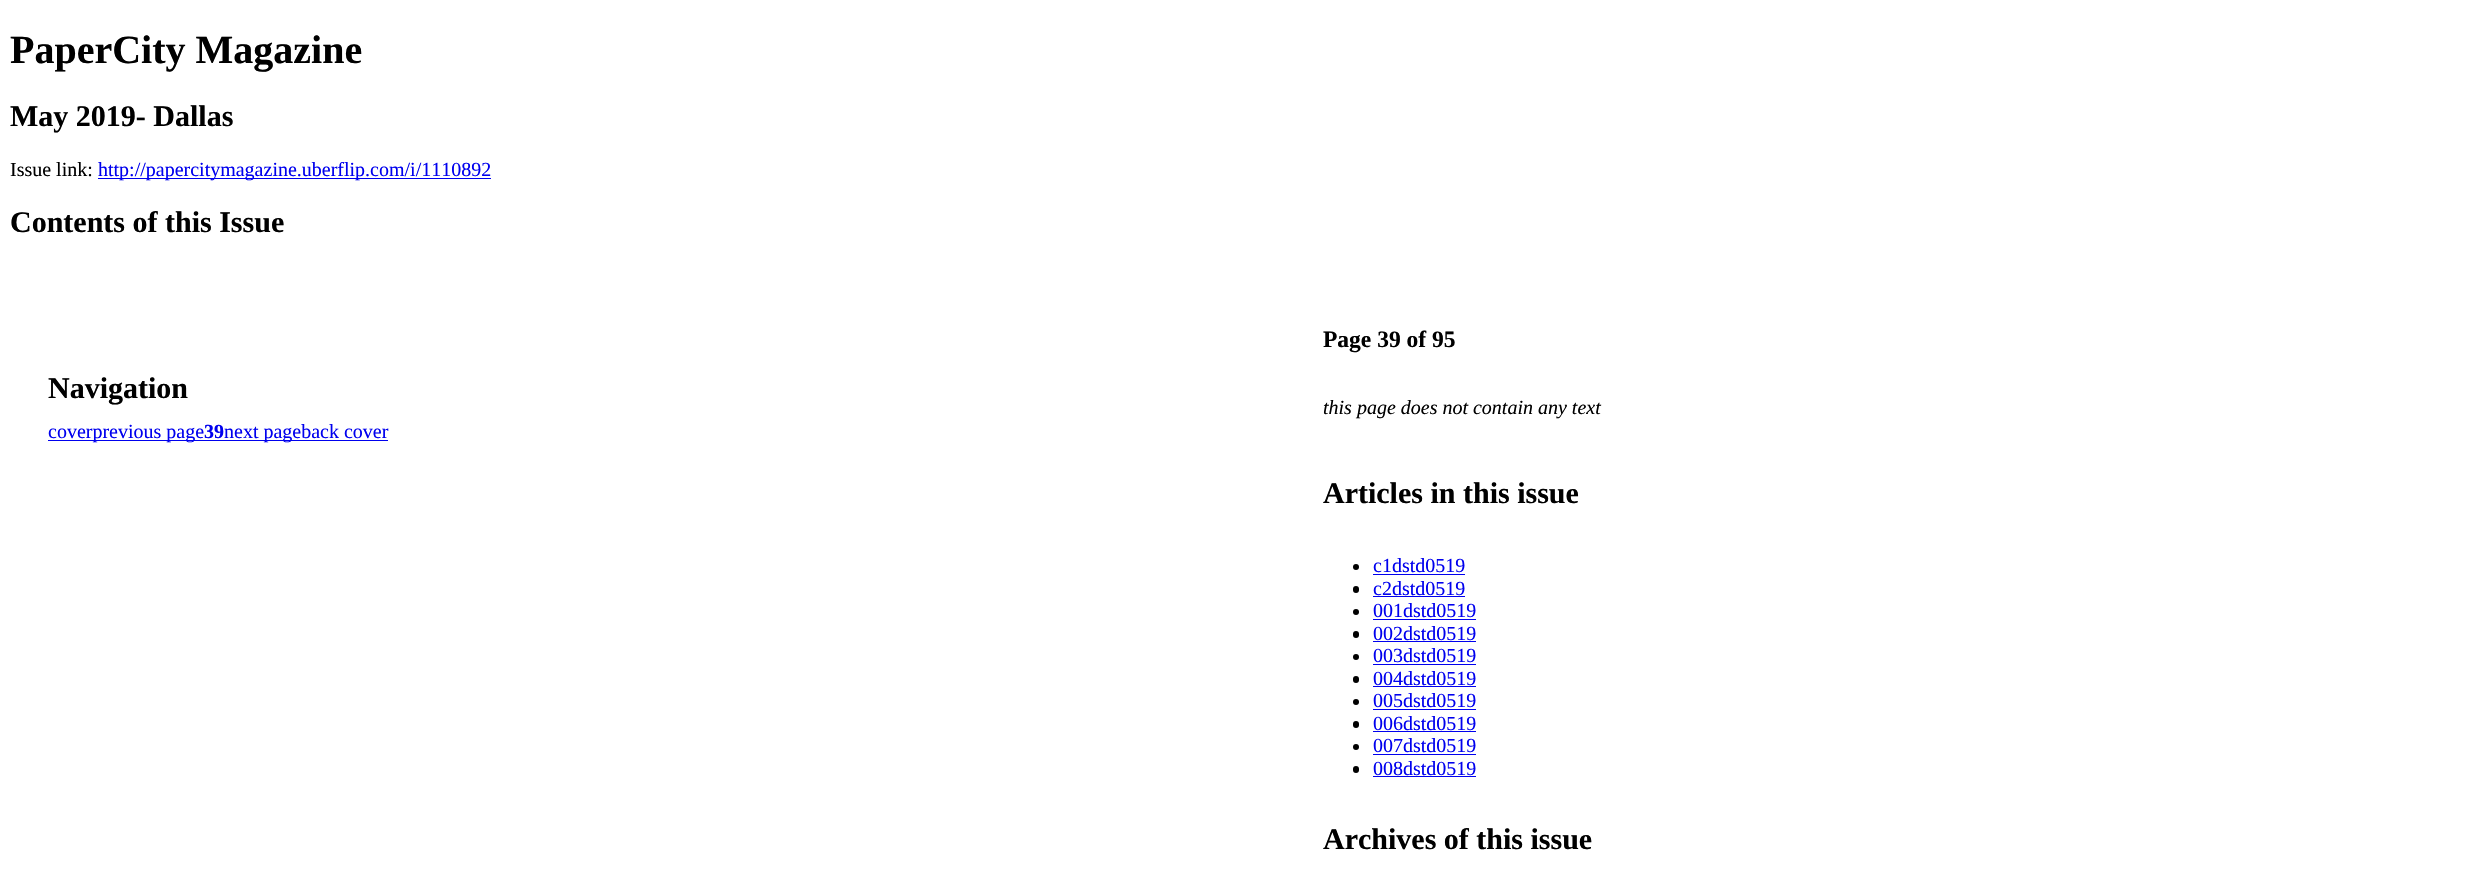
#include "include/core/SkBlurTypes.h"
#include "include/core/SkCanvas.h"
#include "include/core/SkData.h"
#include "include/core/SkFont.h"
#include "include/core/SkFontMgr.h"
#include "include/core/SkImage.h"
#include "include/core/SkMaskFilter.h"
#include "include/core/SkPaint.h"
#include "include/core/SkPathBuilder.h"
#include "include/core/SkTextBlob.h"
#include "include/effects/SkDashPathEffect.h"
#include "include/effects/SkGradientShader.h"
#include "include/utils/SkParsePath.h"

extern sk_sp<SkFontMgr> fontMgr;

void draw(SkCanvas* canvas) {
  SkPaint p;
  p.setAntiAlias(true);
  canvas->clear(SK_ColorWHITE);
  p.setColor(SkColorSetRGB(0, 0, 238));
  canvas->drawRect(SkRect::MakeLTRB(98, 178, 491, 179), p);
  canvas->drawRect(SkRect::MakeLTRB(48, 440, 388, 441), p);
  p.setColor(SK_ColorBLACK);
  canvas->drawCircle(1356, 567, 3, p);
  p.setColor(SkColorSetRGB(0, 0, 238));
  canvas->drawRect(SkRect::MakeLTRB(1373, 574, 1465, 575), p);
  p.setColor(SK_ColorBLACK);
  canvas->drawRoundRect(SkRect::MakeLTRB(1353, 586, 1359, 593), 3, 3, p);
  p.setColor(SkColorSetRGB(0, 0, 238));
  canvas->drawRect(SkRect::MakeLTRB(1373, 596, 1465, 597), p);
  p.setColor(SK_ColorBLACK);
  canvas->drawCircle(1356, 612, 3, p);
  p.setColor(SkColorSetRGB(0, 0, 238));
  canvas->drawRect(SkRect::MakeLTRB(1373, 619, 1476, 620), p);
  p.setColor(SK_ColorBLACK);
  canvas->drawRoundRect(SkRect::MakeLTRB(1353, 631, 1359, 638), 3, 3, p);
  p.setColor(SkColorSetRGB(0, 0, 238));
  canvas->drawRect(SkRect::MakeLTRB(1373, 641, 1476, 642), p);
  p.setColor(SK_ColorBLACK);
  canvas->drawCircle(1356, 657, 3, p);
  p.setColor(SkColorSetRGB(0, 0, 238));
  canvas->drawRect(SkRect::MakeLTRB(1373, 664, 1476, 665), p);
  p.setColor(SK_ColorBLACK);
  canvas->drawRoundRect(SkRect::MakeLTRB(1353, 676, 1359, 683), 3, 3, p);
  p.setColor(SkColorSetRGB(0, 0, 238));
  canvas->drawRect(SkRect::MakeLTRB(1373, 686, 1476, 687), p);
  p.setColor(SK_ColorBLACK);
  canvas->drawCircle(1356, 702, 3, p);
  p.setColor(SkColorSetRGB(0, 0, 238));
  canvas->drawRect(SkRect::MakeLTRB(1373, 709, 1476, 710), p);
  p.setColor(SK_ColorBLACK);
  canvas->drawRoundRect(SkRect::MakeLTRB(1353, 721, 1359, 728), 3, 3, p);
  p.setColor(SkColorSetRGB(0, 0, 238));
  canvas->drawRect(SkRect::MakeLTRB(1373, 731, 1476, 732), p);
  p.setColor(SK_ColorBLACK);
  canvas->drawCircle(1356, 747, 3, p);
  p.setColor(SkColorSetRGB(0, 0, 238));
  canvas->drawRect(SkRect::MakeLTRB(1373, 754, 1476, 755), p);
  p.setColor(SK_ColorBLACK);
  canvas->drawRoundRect(SkRect::MakeLTRB(1353, 766, 1359, 773), 3, 3, p);
  p.setColor(SkColorSetRGB(0, 0, 238));
  canvas->drawRect(SkRect::MakeLTRB(1373, 776, 1476, 777), p);
  SkFont font1(fontMgr->matchFamilyStyle("Liberation Serif", SkFontStyle::Bold()), 40);
  font1.setSubpixel(true);
  p.setColor(SK_ColorBLACK);
  canvas->drawString("PaperCity Magazine", 10, 63, font1, p);
  SkFont font2(fontMgr->matchFamilyStyle("Liberation Serif", SkFontStyle::Bold()), 30);
  font2.setSubpixel(true);
  canvas->drawString("May 2019- Dallas", 10, 126, font2, p);
  SkFont font3(fontMgr->matchFamilyStyle("Liberation Serif", SkFontStyle::Normal()), 20);
  font3.setSubpixel(true);
  canvas->drawString("Issue link:", 10, 176, font3, p);
  p.setColor(SkColorSetRGB(0, 0, 238));
  canvas->drawString("http://papercitymagazine.uberflip.com/i/1110892", 98, 176, font3, p);
  p.setColor(SK_ColorBLACK);
  canvas->drawString("Contents of this Issue", 10, 232, font2, p);
  canvas->drawString("Navigation", 48, 398, font2, p);
  p.setColor(SkColorSetRGB(0, 0, 238));
  canvas->drawString("coverprevious page", 48, 438, font3, p);
  SkFont font4(fontMgr->matchFamilyStyle("Liberation Serif", SkFontStyle::Bold()), 20);
  font4.setSubpixel(true);
  canvas->drawString("39", 204, 438, font4, p);
  canvas->drawString("next pageback cover", 224, 438, font3, p);
  SkFont font5(fontMgr->matchFamilyStyle("Liberation Serif", SkFontStyle::Bold()), 23.5f);
  font5.setSubpixel(true);
  p.setColor(SK_ColorBLACK);
  canvas->drawString("Page 39 of 95", 1323, 347, font5, p);
  SkFont font6(fontMgr->matchFamilyStyle("Liberation Serif", SkFontStyle::Italic()), 20);
  font6.setSubpixel(true);
  canvas->drawString("this page does not contain any text", 1323, 414, font6, p);
  canvas->drawString("Articles in this issue", 1323, 503, font2, p);
  p.setColor(SkColorSetRGB(0, 0, 238));
  canvas->drawString("c1dstd0519", 1373, 572, font3, p);
  canvas->drawString("c2dstd0519", 1373, 595, font3, p);
  canvas->drawString("001dstd0519", 1373, 617, font3, p);
  canvas->drawString("002dstd0519", 1373, 640, font3, p);
  canvas->drawString("003dstd0519", 1373, 662, font3, p);
  canvas->drawString("004dstd0519", 1373, 685, font3, p);
  canvas->drawString("005dstd0519", 1373, 707, font3, p);
  canvas->drawString("006dstd0519", 1373, 730, font3, p);
  canvas->drawString("007dstd0519", 1373, 752, font3, p);
  canvas->drawString("008dstd0519", 1373, 775, font3, p);
  p.setColor(SK_ColorBLACK);
  canvas->drawString("Archives of this issue", 1323, 849, font2, p);
}
